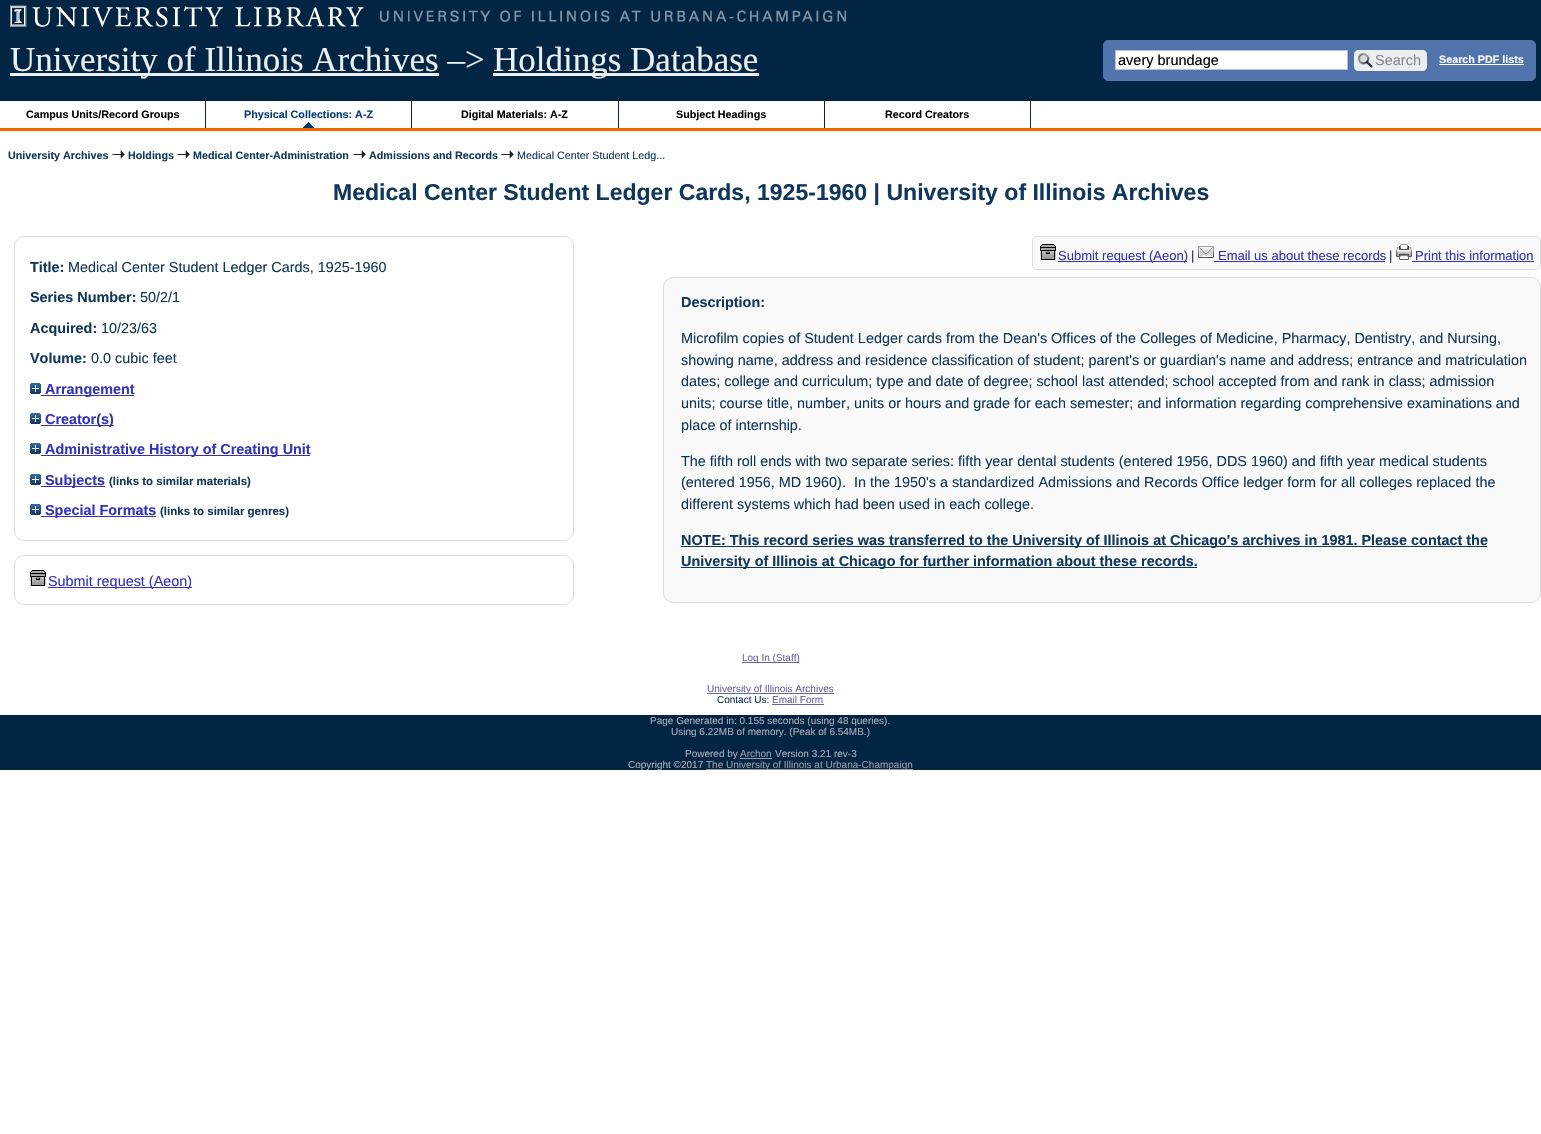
#include "include/core/SkBlurTypes.h"
#include "include/core/SkCanvas.h"
#include "include/core/SkData.h"
#include "include/core/SkFont.h"
#include "include/core/SkFontMgr.h"
#include "include/core/SkImage.h"
#include "include/core/SkMaskFilter.h"
#include "include/core/SkPaint.h"
#include "include/core/SkPathBuilder.h"
#include "include/core/SkTextBlob.h"
#include "include/effects/SkDashPathEffect.h"
#include "include/effects/SkGradientShader.h"
#include "include/utils/SkParsePath.h"

extern sk_sp<SkFontMgr> fontMgr;

void draw(SkCanvas* canvas) {
  SkPaint p;
  p.setAntiAlias(true);
  canvas->clear(SK_ColorWHITE);
  p.setColor(SkColorSetRGB(2, 37, 68));
  canvas->drawRect(SkRect::MakeLTRB(0, 0, 1541, 101), p);
  canvas->drawImageRect(SkImages::DeferredFromEncodedData(SkData::MakeFromFileName("images/1.png")), SkRect::MakeLTRB(10, 5, 846, 27), SkSamplingOptions());
  p.setColor(SkColorSetRGB(250, 99, 0));
  canvas->drawRect(SkRect::MakeLTRB(0, 128, 1541, 131), p);
  p.setColor(SkColorSetRGB(236, 239, 241));
  canvas->drawRect(SkRect::MakeLTRB(10, 73, 439, 76), p);
  canvas->drawRect(SkRect::MakeLTRB(493, 73, 759, 76), p);
  p.setColor(SkColorSetRGB(82, 116, 172));
  canvas->drawRoundRect(SkRect::MakeLTRB(1103.5f, 40.5f, 1535.5f, 80.5f), 4.5f, 4.5f, p);
  p.setStyle(SkPaint::kStroke_Style);
  p.setStrokeWidth(1);
  canvas->drawRoundRect(SkRect::MakeLTRB(1103.5f, 40.5f, 1535.5f, 80.5f), 4.5f, 4.5f, p);
  p.setStyle(SkPaint::kFill_Style);
  p.setColor(SK_ColorWHITE);
  canvas->drawRect(SkRect::MakeLTRB(1115.5f, 50.5f, 1347.5f, 69.5f), p);
  p.setStyle(SkPaint::kStroke_Style);
  p.setColor(SkColorSetRGB(187, 187, 238));
  canvas->drawRect(SkRect::MakeLTRB(1115.5f, 50.5f, 1347.5f, 69.5f), p);
  p.setStyle(SkPaint::kFill_Style);
  p.setColor(SkColorSetRGB(235, 238, 239));
  canvas->drawRoundRect(SkRect::MakeLTRB(1354, 50, 1427, 71), 5, 5, p);
  canvas->drawImageRect(SkImages::DeferredFromEncodedData(SkData::MakeFromFileName("images/2.png")), SkRect::MakeLTRB(1357, 52, 1373, 68), SkSamplingOptions());
  canvas->drawPath(SkPathBuilder(SkPathFillType::kEvenOdd).moveTo(1359, 50).lineTo(1422, 50).cubicTo(1425, 50, 1427, 52, 1427, 55).lineTo(1427, 66).cubicTo(1427, 69, 1425, 71, 1422, 71).lineTo(1359, 71).cubicTo(1356, 71, 1354, 69, 1354, 66).lineTo(1354, 55).cubicTo(1354, 52, 1356, 50, 1359, 50).close().moveTo(1359, 51).lineTo(1422, 51).cubicTo(1424, 51, 1426, 53, 1426, 55).lineTo(1426, 66).cubicTo(1426, 68, 1424, 70, 1422, 70).lineTo(1359, 70).cubicTo(1356, 70, 1354, 68, 1354, 66).lineTo(1354, 55).cubicTo(1354, 53, 1356, 51, 1359, 51).close().detach(), p);
  p.setColor(SK_ColorWHITE);
  canvas->drawRect(SkRect::MakeLTRB(1439, 64, 1524, 65), p);
  p.setColor(SkColorSetRGB(2, 37, 68));
  canvas->drawRect(SkRect::MakeLTRB(205, 101, 206, 128), p);
  canvas->drawImageRect(SkImages::DeferredFromEncodedData(SkData::MakeFromFileName("images/3.png")), SkRect::MakeLTRB(303, 122, 314, 128), SkSamplingOptions());
  canvas->drawRect(SkRect::MakeLTRB(411, 101, 412, 128), p);
  canvas->drawRect(SkRect::MakeLTRB(618, 101, 619, 128), p);
  canvas->drawRect(SkRect::MakeLTRB(824, 101, 825, 128), p);
  canvas->drawRect(SkRect::MakeLTRB(1030, 101, 1031, 128), p);
  canvas->drawImageRect(SkImages::DeferredFromEncodedData(SkData::MakeFromFileName("images/4.png")), SkRect::MakeLTRB(112, 150, 125, 159), SkSamplingOptions());
  canvas->drawImageRect(SkImages::DeferredFromEncodedData(SkData::MakeFromFileName("images/4.png")), SkRect::MakeLTRB(177, 150, 190, 159), SkSamplingOptions());
  canvas->drawImageRect(SkImages::DeferredFromEncodedData(SkData::MakeFromFileName("images/4.png")), SkRect::MakeLTRB(353, 150, 366, 159), SkSamplingOptions());
  canvas->drawImageRect(SkImages::DeferredFromEncodedData(SkData::MakeFromFileName("images/4.png")), SkRect::MakeLTRB(501, 150, 514, 159), SkSamplingOptions());
  p.setStyle(SkPaint::kStroke_Style);
  p.setColor(SkColorSetRGB(221, 221, 221));
  canvas->drawRoundRect(SkRect::MakeLTRB(14.5f, 236.5f, 573.5f, 540.5f), 9.5f, 9.5f, p);
  canvas->drawImageRect(SkImages::DeferredFromEncodedData(SkData::MakeFromFileName("images/5.png")), SkRect::MakeLTRB(30, 383, 41, 394), SkSamplingOptions());
  p.setStyle(SkPaint::kFill_Style);
  p.setColor(SkColorSetRGB(51, 51, 187));
  canvas->drawRect(SkRect::MakeLTRB(41, 395, 134, 396), p);
  canvas->drawImageRect(SkImages::DeferredFromEncodedData(SkData::MakeFromFileName("images/5.png")), SkRect::MakeLTRB(30, 413, 41, 424), SkSamplingOptions());
  canvas->drawRect(SkRect::MakeLTRB(41, 425, 114, 426), p);
  canvas->drawImageRect(SkImages::DeferredFromEncodedData(SkData::MakeFromFileName("images/5.png")), SkRect::MakeLTRB(30, 443, 41, 454), SkSamplingOptions());
  canvas->drawRect(SkRect::MakeLTRB(41, 455, 310, 456), p);
  canvas->drawImageRect(SkImages::DeferredFromEncodedData(SkData::MakeFromFileName("images/5.png")), SkRect::MakeLTRB(30, 474, 41, 485), SkSamplingOptions());
  canvas->drawRect(SkRect::MakeLTRB(41, 486, 105, 487), p);
  canvas->drawImageRect(SkImages::DeferredFromEncodedData(SkData::MakeFromFileName("images/5.png")), SkRect::MakeLTRB(30, 504, 41, 515), SkSamplingOptions());
  canvas->drawRect(SkRect::MakeLTRB(41, 516, 156, 517), p);
  p.setStyle(SkPaint::kStroke_Style);
  p.setColor(SkColorSetRGB(221, 221, 221));
  canvas->drawRoundRect(SkRect::MakeLTRB(14.5f, 555.5f, 573.5f, 604.5f), 9.5f, 9.5f, p);
  canvas->drawImageRect(SkImages::DeferredFromEncodedData(SkData::MakeFromFileName("images/6.png")), SkRect::MakeLTRB(30, 570, 46, 586), SkSamplingOptions());
  p.setStyle(SkPaint::kFill_Style);
  p.setColor(SkColorSetRGB(51, 51, 187));
  canvas->drawRect(SkRect::MakeLTRB(48, 587, 192, 588), p);
  p.setColor(SkColorSetRGB(249, 249, 250));
  canvas->drawRoundRect(SkRect::MakeLTRB(1032.5f, 236.5f, 1540.5f, 269.5f), 4.5f, 4.5f, p);
  p.setStyle(SkPaint::kStroke_Style);
  p.setColor(SkColorSetRGB(221, 221, 221));
  canvas->drawRoundRect(SkRect::MakeLTRB(1032.5f, 236.5f, 1540.5f, 269.5f), 4.5f, 4.5f, p);
  canvas->drawImageRect(SkImages::DeferredFromEncodedData(SkData::MakeFromFileName("images/7.png")), SkRect::MakeLTRB(1040, 244, 1056, 260), SkSamplingOptions());
  p.setStyle(SkPaint::kFill_Style);
  p.setColor(SkColorSetRGB(51, 51, 187));
  canvas->drawRect(SkRect::MakeLTRB(1058, 261, 1187, 262), p);
  canvas->drawImageRect(SkImages::DeferredFromEncodedData(SkData::MakeFromFileName("images/8.png")), SkRect::MakeLTRB(1198, 246, 1214, 258), SkSamplingOptions());
  canvas->drawRect(SkRect::MakeLTRB(1214, 261, 1385, 262), p);
  canvas->drawImageRect(SkImages::DeferredFromEncodedData(SkData::MakeFromFileName("images/9.png")), SkRect::MakeLTRB(1396, 244, 1412, 260), SkSamplingOptions());
  canvas->drawRect(SkRect::MakeLTRB(1412, 261, 1534, 262), p);
  p.setColor(SkColorSetRGB(249, 249, 250));
  canvas->drawRoundRect(SkRect::MakeLTRB(663.5f, 277.5f, 1540.5f, 602.5f), 9.5f, 9.5f, p);
  p.setStyle(SkPaint::kStroke_Style);
  p.setColor(SkColorSetRGB(221, 221, 221));
  canvas->drawRoundRect(SkRect::MakeLTRB(663.5f, 277.5f, 1540.5f, 602.5f), 9.5f, 9.5f, p);
  p.setStyle(SkPaint::kFill_Style);
  p.setColor(SkColorSetRGB(16, 55, 93));
  canvas->drawRect(SkRect::MakeLTRB(681, 546, 1487, 547), p);
  canvas->drawRect(SkRect::MakeLTRB(681, 567, 1197, 568), p);
  p.setColor(SkColorSetRGB(102, 102, 170));
  canvas->drawRect(SkRect::MakeLTRB(742, 662, 799, 663), p);
  canvas->drawRect(SkRect::MakeLTRB(707, 693, 834, 694), p);
  canvas->drawRect(SkRect::MakeLTRB(772, 704, 824, 705), p);
  p.setColor(SkColorSetRGB(2, 37, 68));
  canvas->drawRect(SkRect::MakeLTRB(0, 715, 1541, 770), p);
  p.setColor(SkColorSetRGB(153, 153, 170));
  canvas->drawRect(SkRect::MakeLTRB(740, 758, 772, 759), p);
  canvas->drawRect(SkRect::MakeLTRB(706, 769, 913, 770), p);
  SkFont font1(fontMgr->matchFamilyStyle("Liberation Serif", SkFontStyle::Normal()), 35);
  font1.setSubpixel(true);
  p.setColor(SkColorSetRGB(236, 239, 241));
  canvas->drawString("University of Illinois Archives –>", 10, 71, font1, p);
  canvas->drawString("Holdings Database", 493, 71, font1, p);
  SkFont font2(fontMgr->matchFamilyStyle("Liberation Sans", SkFontStyle::Normal()), 14.5f);
  font2.setSubpixel(true);
  p.setColor(SK_ColorBLACK);
  canvas->drawString("avery brundage", 1118, 65, font2, p);
  p.setColor(SkColorSetRGB(136, 136, 153));
  canvas->drawString("Search", 1375, 65, font2, p);
  SkFont font3(fontMgr->matchFamilyStyle("Liberation Sans", SkFontStyle::Bold()), 10.75f);
  font3.setSubpixel(true);
  p.setColor(SK_ColorWHITE);
  canvas->drawString("Search PDF lists", 1439, 63, font3, p);
  p.setColor(SK_ColorBLACK);
  canvas->drawString("Campus Units/Record Groups", 26, 118, font3, p);
  p.setColor(SkColorSetRGB(0, 60, 123));
  canvas->drawString("Physical Collections: A-Z", 244, 118, font3, p);
  p.setColor(SK_ColorBLACK);
  canvas->drawString("Digital Materials: A-Z", 461, 118, font3, p);
  canvas->drawString("Subject Headings", 676, 118, font3, p);
  canvas->drawString("Record Creators", 885, 118, font3, p);
  p.setColor(SkColorSetRGB(16, 55, 93));
  canvas->drawString("University Archives", 8, 159, font3, p);
  canvas->drawString("Holdings", 128, 159, font3, p);
  canvas->drawString("Medical Center-Administration", 193, 159, font3, p);
  canvas->drawString("Admissions and Records", 369, 159, font3, p);
  SkFont font4(fontMgr->matchFamilyStyle("Liberation Sans", SkFontStyle::Normal()), 10.75f);
  font4.setSubpixel(true);
  canvas->drawString("Medical Center Student Ledg...", 517, 159, font4, p);
  SkFont font5(fontMgr->matchFamilyStyle("Liberation Sans", SkFontStyle::Bold()), 23.05f);
  font5.setSubpixel(true);
  canvas->drawString("Medical Center Student Ledger Cards, 1925-1960 | University of Illinois Archives", 333, 200, font5, p);
  SkFont font6(fontMgr->matchFamilyStyle("Liberation Sans", SkFontStyle::Bold()), 14.4f);
  font6.setSubpixel(true);
  canvas->drawString("Title:", 30, 272, font6, p);
  SkFont font7(fontMgr->matchFamilyStyle("Liberation Sans", SkFontStyle::Normal()), 14.4f);
  font7.setSubpixel(true);
  canvas->drawString("Medical Center Student Ledger Cards, 1925-1960", 68, 272, font7, p);
  canvas->drawString("Series Number:", 30, 302, font6, p);
  canvas->drawString("50/2/1", 140, 302, font7, p);
  canvas->drawString("Acquired:", 30, 333, font6, p);
  canvas->drawString("10/23/63", 101, 333, font7, p);
  canvas->drawString("Volume:", 30, 363, font6, p);
  canvas->drawString("0.0 cubic feet", 91, 363, font7, p);
  p.setColor(SkColorSetRGB(51, 51, 187));
  canvas->drawString("Arrangement", 45, 394, font6, p);
  canvas->drawString("Creator(s)", 45, 424, font6, p);
  canvas->drawString("Administrative History of Creating Unit", 45, 454, font6, p);
  canvas->drawString("Subjects", 45, 485, font6, p);
  SkFont font8(fontMgr->matchFamilyStyle("Liberation Sans", SkFontStyle::Bold()), 11.5f);
  font8.setSubpixel(true);
  p.setColor(SkColorSetRGB(16, 55, 93));
  canvas->drawString("(links to similar materials)", 109, 485, font8, p);
  p.setColor(SkColorSetRGB(51, 51, 187));
  canvas->drawString("Special Formats", 45, 515, font6, p);
  p.setColor(SkColorSetRGB(16, 55, 93));
  canvas->drawString("(links to similar genres)", 160, 515, font8, p);
  p.setColor(SkColorSetRGB(51, 51, 187));
  canvas->drawString("Submit request (Aeon)", 48, 586, font7, p);
  SkFont font9(fontMgr->matchFamilyStyle("Liberation Sans", SkFontStyle::Normal()), 13);
  font9.setSubpixel(true);
  canvas->drawString("Submit request (Aeon)", 1058, 260, font9, p);
  p.setColor(SkColorSetRGB(16, 55, 93));
  canvas->drawString("|", 1191, 260, font9, p);
  p.setColor(SkColorSetRGB(51, 51, 187));
  canvas->drawString("Email us about these records", 1218, 260, font9, p);
  p.setColor(SkColorSetRGB(16, 55, 93));
  canvas->drawString("|", 1389, 260, font9, p);
  p.setColor(SkColorSetRGB(51, 51, 187));
  canvas->drawString("Print this information", 1415, 260, font9, p);
  p.setColor(SkColorSetRGB(16, 55, 93));
  canvas->drawString("Description:", 681, 307, font6, p);
  canvas->drawString("Microfilm copies of Student Ledger cards from the Dean's Offices of the Colleges of Medicine, Pharmacy, Dentistry, and Nursing,", 681, 343, font7, p);
  canvas->drawString("showing name, address and residence classification of student; parent's or guardian's name and address; entrance and matriculation", 681, 365, font7, p);
  canvas->drawString("dates; college and curriculum; type and date of degree; school last attended; school accepted from and rank in class; admission", 681, 386, font7, p);
  canvas->drawString("units; course title, number, units or hours and grade for each semester; and information regarding comprehensive examinations and", 681, 408, font7, p);
  canvas->drawString("place of internship.", 681, 430, font7, p);
  canvas->drawString("The fifth roll ends with two separate series: fifth year dental students (entered 1956, DDS 1960) and fifth year medical students", 681, 466, font7, p);
  canvas->drawString("(entered 1956, MD 1960).  In the 1950's a standardized Admissions and Records Office ledger form for all colleges replaced the", 681, 487, font7, p);
  canvas->drawString("different systems which had been used in each college.", 681, 509, font7, p);
  canvas->drawString("NOTE: This record series was transferred to the University of Illinois at Chicago's archives in 1981. Please contact the", 681, 545, font6, p);
  canvas->drawString("University of Illinois at Chicago for further information about these records.", 681, 566, font6, p);
  SkFont font10(fontMgr->matchFamilyStyle("Liberation Sans", SkFontStyle::Normal()), 10);
  font10.setSubpixel(true);
  p.setColor(SkColorSetRGB(102, 102, 170));
  canvas->drawString("Log In (Staff)", 742, 661, font10, p);
  canvas->drawString("University of Illinois Archives", 707, 692, font10, p);
  p.setColor(SkColorSetRGB(16, 55, 93));
  canvas->drawString("Contact Us:", 717, 703, font10, p);
  p.setColor(SkColorSetRGB(102, 102, 170));
  canvas->drawString("Email Form", 772, 703, font10, p);
  p.setColor(SkColorSetRGB(170, 170, 187));
  canvas->drawString("Page Generated in: 0.155 seconds (using 48 queries).", 650, 724, font10, p);
  canvas->drawString("Using 6.22MB of memory. (Peak of 6.54MB.)", 671, 735, font10, p);
  canvas->drawString("Powered by", 685, 757, font10, p);
  p.setColor(SkColorSetRGB(153, 153, 170));
  canvas->drawString("Archon", 740, 757, font10, p);
  p.setColor(SkColorSetRGB(170, 170, 187));
  canvas->drawString("Version 3.21 rev-3", 775, 757, font10, p);
  canvas->drawString("Copyright ©2017", 628, 768, font10, p);
  p.setColor(SkColorSetRGB(153, 153, 170));
  canvas->drawString("The University of Illinois at Urbana-Champaign", 706, 768, font10, p);
}
